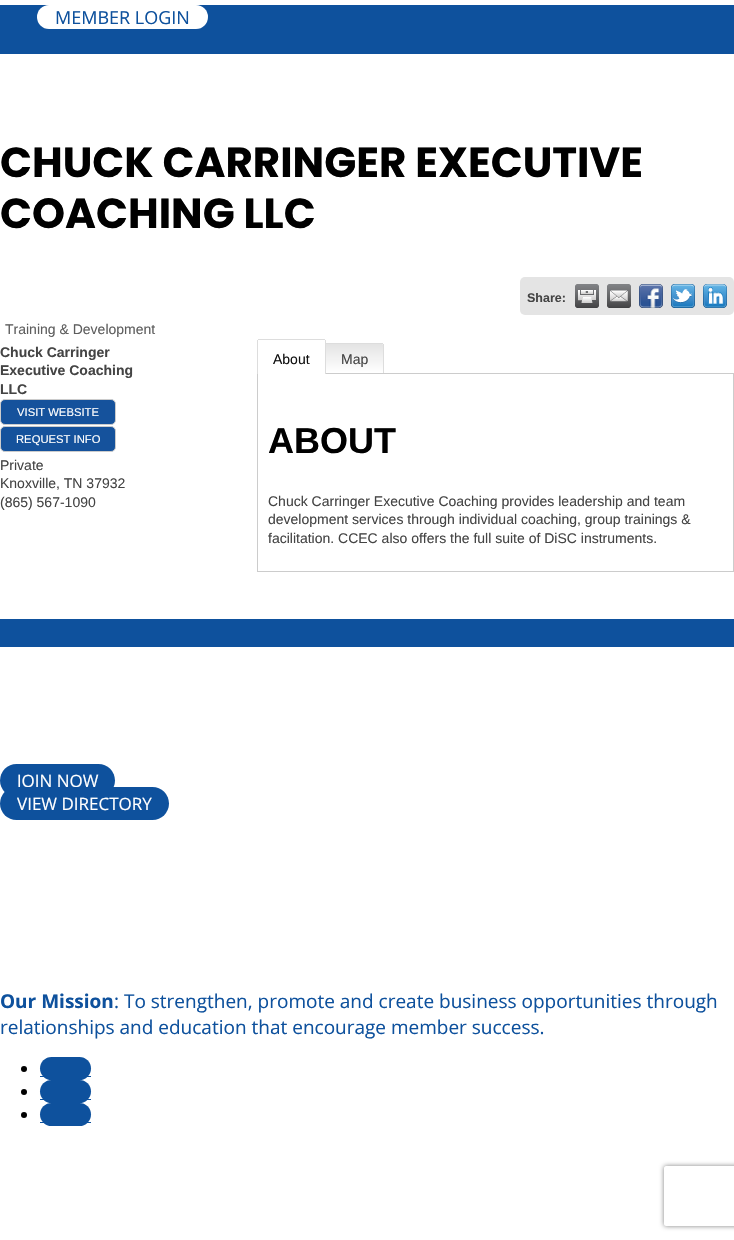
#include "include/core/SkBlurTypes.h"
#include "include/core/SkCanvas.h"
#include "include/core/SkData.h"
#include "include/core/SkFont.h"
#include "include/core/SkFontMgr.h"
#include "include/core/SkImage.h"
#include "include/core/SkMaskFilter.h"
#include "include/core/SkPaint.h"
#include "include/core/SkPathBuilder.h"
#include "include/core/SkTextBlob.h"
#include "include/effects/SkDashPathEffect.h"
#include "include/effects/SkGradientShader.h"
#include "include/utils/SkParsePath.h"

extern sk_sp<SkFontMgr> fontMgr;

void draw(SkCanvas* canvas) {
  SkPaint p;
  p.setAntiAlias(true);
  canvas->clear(SK_ColorWHITE);
  p.setColor(SkColorSetRGB(14, 81, 157));
  canvas->drawRect(SkRect::MakeLTRB(0, 5, 734, 54), p);
  p.setColor(SK_ColorWHITE);
  canvas->drawRoundRect(SkRect::MakeLTRB(37, 5, 208, 29), 12, 12, p);
  p.setColor(SkColorSetRGB(228, 228, 228));
  canvas->drawRoundRect(SkRect::MakeLTRB(520, 277, 734, 315), 5, 5, p);
  canvas->drawImageRect(SkImages::DeferredFromEncodedData(SkData::MakeFromFileName("images/1.png")), SkRect::MakeLTRB(575, 284, 599, 308), SkSamplingOptions());
  canvas->drawImageRect(SkImages::DeferredFromEncodedData(SkData::MakeFromFileName("images/2.png")), SkRect::MakeLTRB(607, 284, 631, 308), SkSamplingOptions());
  canvas->drawImageRect(SkImages::DeferredFromEncodedData(SkData::MakeFromFileName("images/3.png")), SkRect::MakeLTRB(639, 284, 663, 308), SkSamplingOptions());
  canvas->drawImageRect(SkImages::DeferredFromEncodedData(SkData::MakeFromFileName("images/4.png")), SkRect::MakeLTRB(671, 284, 695, 308), SkSamplingOptions());
  canvas->drawImageRect(SkImages::DeferredFromEncodedData(SkData::MakeFromFileName("images/5.png")), SkRect::MakeLTRB(703, 284, 727, 308), SkSamplingOptions());
  p.setColor(SkColorSetRGB(21, 82, 156));
  canvas->drawRoundRect(SkRect::MakeLTRB(0.5f, 399.5f, 115.5f, 424.5f), 4.5f, 4.5f, p);
  p.setStyle(SkPaint::kStroke_Style);
  p.setStrokeWidth(1);
  p.setColor(SkColorSetRGB(204, 204, 204));
  canvas->drawRoundRect(SkRect::MakeLTRB(0.5f, 399.5f, 115.5f, 424.5f), 4.5f, 4.5f, p);
  p.setStyle(SkPaint::kFill_Style);
  p.setColor(SkColorSetRGB(21, 82, 156));
  canvas->drawRoundRect(SkRect::MakeLTRB(0.5f, 426.5f, 115.5f, 451.5f), 4.5f, 4.5f, p);
  p.setStyle(SkPaint::kStroke_Style);
  p.setColor(SkColorSetRGB(204, 204, 204));
  canvas->drawRoundRect(SkRect::MakeLTRB(0.5f, 426.5f, 115.5f, 451.5f), 4.5f, 4.5f, p);
  canvas->drawRect(SkRect::MakeLTRB(257.5f, 373.5f, 733.5f, 571.5f), p);
  p.setStyle(SkPaint::kFill_Style);
  p.setColor(SK_ColorWHITE);
  canvas->drawPath(SkPathBuilder().moveTo(259, 340).lineTo(324, 340).cubicTo(324.5f, 340, 325, 340.5f, 325, 341).lineTo(325, 374).lineTo(258, 374).lineTo(258, 341).cubicTo(258, 340.5f, 258.5f, 340, 259, 340).close().detach(), p);
  p.setColor(SkColorSetRGB(221, 221, 221));
  canvas->drawRect(SkRect::MakeLTRB(258, 339, 325, 340), p);
  canvas->drawRect(SkRect::MakeLTRB(325, 340, 326, 374), p);
  canvas->drawRect(SkRect::MakeLTRB(257, 340, 258, 374), p);
  {
    const SkColor colors[] = {SkColorSetRGB(228, 228, 228), SK_ColorWHITE};
    const float stops[] = {0, 1};
    const SkPoint ends[] = {{355, 344}, {355, 373}};
    p.setShader(SkGradientShader::MakeLinear(ends, colors, stops, 2, SkTileMode::kClamp));
    p.setAlpha(255);
  }
  canvas->drawPath(SkPathBuilder().moveTo(326, 344).lineTo(382, 344).cubicTo(382.5f, 344, 383, 344.5f, 383, 345).lineTo(383, 373).lineTo(326, 373).close().detach(), p);
  p.setShader(nullptr);
  p.setColor(SkColorSetRGB(221, 221, 221));
  canvas->drawRect(SkRect::MakeLTRB(326, 343, 383, 344), p);
  canvas->drawRect(SkRect::MakeLTRB(383, 344, 384, 373), p);
  p.setColor(SkColorSetRGB(14, 81, 157));
  canvas->drawRect(SkRect::MakeLTRB(0, 619, 734, 647), p);
  canvas->drawRoundRect(SkRect::MakeLTRB(0, 764, 115, 797), 16.5f, 16.5f, p);
  p.setColor(SK_ColorBLACK);
  canvas->drawCircle(24, 1069, 3, p);
  p.setColor(SkColorSetRGB(14, 81, 157));
  canvas->drawRoundRect(SkRect::MakeLTRB(40, 1057, 91, 1080), 11.5f, 11.5f, p);
  canvas->drawRect(SkRect::MakeLTRB(40, 1076, 91, 1077), p);
  p.setColor(SK_ColorBLACK);
  canvas->drawCircle(24, 1092, 3, p);
  p.setColor(SkColorSetRGB(14, 81, 157));
  canvas->drawRoundRect(SkRect::MakeLTRB(40, 1080, 91, 1103), 11.5f, 11.5f, p);
  canvas->drawRect(SkRect::MakeLTRB(40, 1099, 91, 1100), p);
  p.setColor(SK_ColorBLACK);
  canvas->drawCircle(24, 1115, 3, p);
  p.setColor(SkColorSetRGB(14, 81, 157));
  canvas->drawRoundRect(SkRect::MakeLTRB(40, 1103, 91, 1126), 11.5f, 11.5f, p);
  canvas->drawRect(SkRect::MakeLTRB(40, 1122, 91, 1123), p);
  canvas->save();
  canvas->clipPath(SkPathBuilder(SkPathFillType::kEvenOdd).moveTo(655, 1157).lineTo(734, 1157).lineTo(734, 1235).lineTo(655, 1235).close().moveTo(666, 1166).lineTo(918, 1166).cubicTo(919, 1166, 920, 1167, 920, 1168).lineTo(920, 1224).cubicTo(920, 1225, 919, 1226, 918, 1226).lineTo(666, 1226).cubicTo(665, 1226, 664, 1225, 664, 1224).lineTo(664, 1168).cubicTo(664, 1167, 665, 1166, 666, 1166).close().detach(), true);
  p.setColor(SkColorSetRGB(128, 128, 128));
  p.setMaskFilter(SkMaskFilter::MakeBlur(kNormal_SkBlurStyle, 2.5f));
  canvas->drawRoundRect(SkRect::MakeLTRB(664, 1166, 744, 1226), 2, 2, p);
  p.setMaskFilter(nullptr);
  canvas->restore();
  SkFont font1(fontMgr->matchFamilyStyle("Open Sans", SkFontStyle::Normal()), 18);
  font1.setSubpixel(true);
  p.setColor(SkColorSetRGB(14, 81, 157));
  canvas->drawString("MEMBER LOGIN", 55, 24, font1, p);
  SkFont font2(fontMgr->matchFamilyStyle("Poppins", SkFontStyle::Bold()), 42);
  font2.setSubpixel(true);
  p.setColor(SK_ColorBLACK);
  canvas->drawString("CHUCK CARRINGER EXECUTIVE", 0, 177, font2, p);
  canvas->drawString("COACHING LLC", 0, 228, font2, p);
  SkFont font3(fontMgr->matchFamilyStyle("Liberation Sans", SkFontStyle::Bold()), 12.5f);
  font3.setSubpixel(true);
  p.setColor(SkColorSetRGB(68, 68, 68));
  canvas->drawString("Share:", 527, 302, font3, p);
  SkFont font4(fontMgr->matchFamilyStyle("Liberation Sans", SkFontStyle::Normal()), 14);
  font4.setSubpixel(true);
  p.setColor(SkColorSetRGB(94, 94, 94));
  canvas->drawString("Training & Development", 5, 334, font4, p);
  SkFont font5(fontMgr->matchFamilyStyle("Liberation Sans", SkFontStyle::Bold()), 14);
  font5.setSubpixel(true);
  p.setColor(SkColorSetRGB(68, 68, 68));
  canvas->drawString("Chuck Carringer", 0, 357, font5, p);
  canvas->drawString("Executive Coaching", 0, 375, font5, p);
  canvas->drawString("LLC", 0, 394, font5, p);
  SkFont font6(fontMgr->matchFamilyStyle("Liberation Sans", SkFontStyle::Normal()), 11.25f);
  font6.setSubpixel(true);
  p.setColor(SK_ColorWHITE);
  canvas->drawString("VISIT WEBSITE", 17, 416, font6, p);
  canvas->drawString("REQUEST INFO", 16, 443, font6, p);
  p.setColor(SkColorSetRGB(68, 68, 68));
  canvas->drawString("Private", 0, 470, font4, p);
  canvas->drawString("Knoxville, TN 37932", 0, 488, font4, p);
  canvas->drawString("(865) 567-1090", 0, 507, font4, p);
  p.setColor(SkColorSetRGB(17, 17, 17));
  canvas->drawString("About", 273, 364, font4, p);
  p.setColor(SkColorSetRGB(68, 68, 68));
  canvas->drawString("Map", 341, 364, font4, p);
  SkFont font7(fontMgr->matchFamilyStyle("Liberation Sans", SkFontStyle::Bold()), 36);
  font7.setSubpixel(true);
  p.setColor(SK_ColorBLACK);
  canvas->drawString("ABOUT", 268, 453, font7, p);
  p.setColor(SkColorSetRGB(68, 68, 68));
  canvas->drawString("Chuck Carringer Executive Coaching provides leadership and team", 268, 506, font4, p);
  canvas->drawString("development services through individual coaching, group trainings &", 268, 524, font4, p);
  canvas->drawString("facilitation. CCEC also offers the full suite of DiSC instruments.", 268, 543, font4, p);
  SkFont font8(fontMgr->matchFamilyStyle("Open Sans", SkFontStyle::Normal()), 17);
  font8.setSubpixel(true);
  p.setColor(SK_ColorWHITE);
  canvas->drawString("JOIN NOW", 17, 787, font8, p);
  p.setColor(SkColorSetRGB(14, 81, 157));
  canvas->drawRoundRect(SkRect::MakeLTRB(0, 787, 169, 820), 16.5f, 16.5f, p);
  p.setColor(SK_ColorWHITE);
  canvas->drawString("VIEW DIRECTORY", 17, 810, font8, p);
  SkFont font9(fontMgr->matchFamilyStyle("Open Sans", SkFontStyle::Bold()), 19);
  font9.setSubpixel(true);
  p.setColor(SkColorSetRGB(14, 81, 157));
  canvas->drawString("Our Mission", 0, 1008, font9, p);
  SkFont font10(fontMgr->matchFamilyStyle("Open Sans", SkFontStyle::Normal()), 19);
  font10.setSubpixel(true);
  canvas->drawString(": To strengthen, promote and create business opportunities through", 114, 1008, font10, p);
  canvas->drawString("relationships and education that encourage member success.", 0, 1034, font10, p);
}
